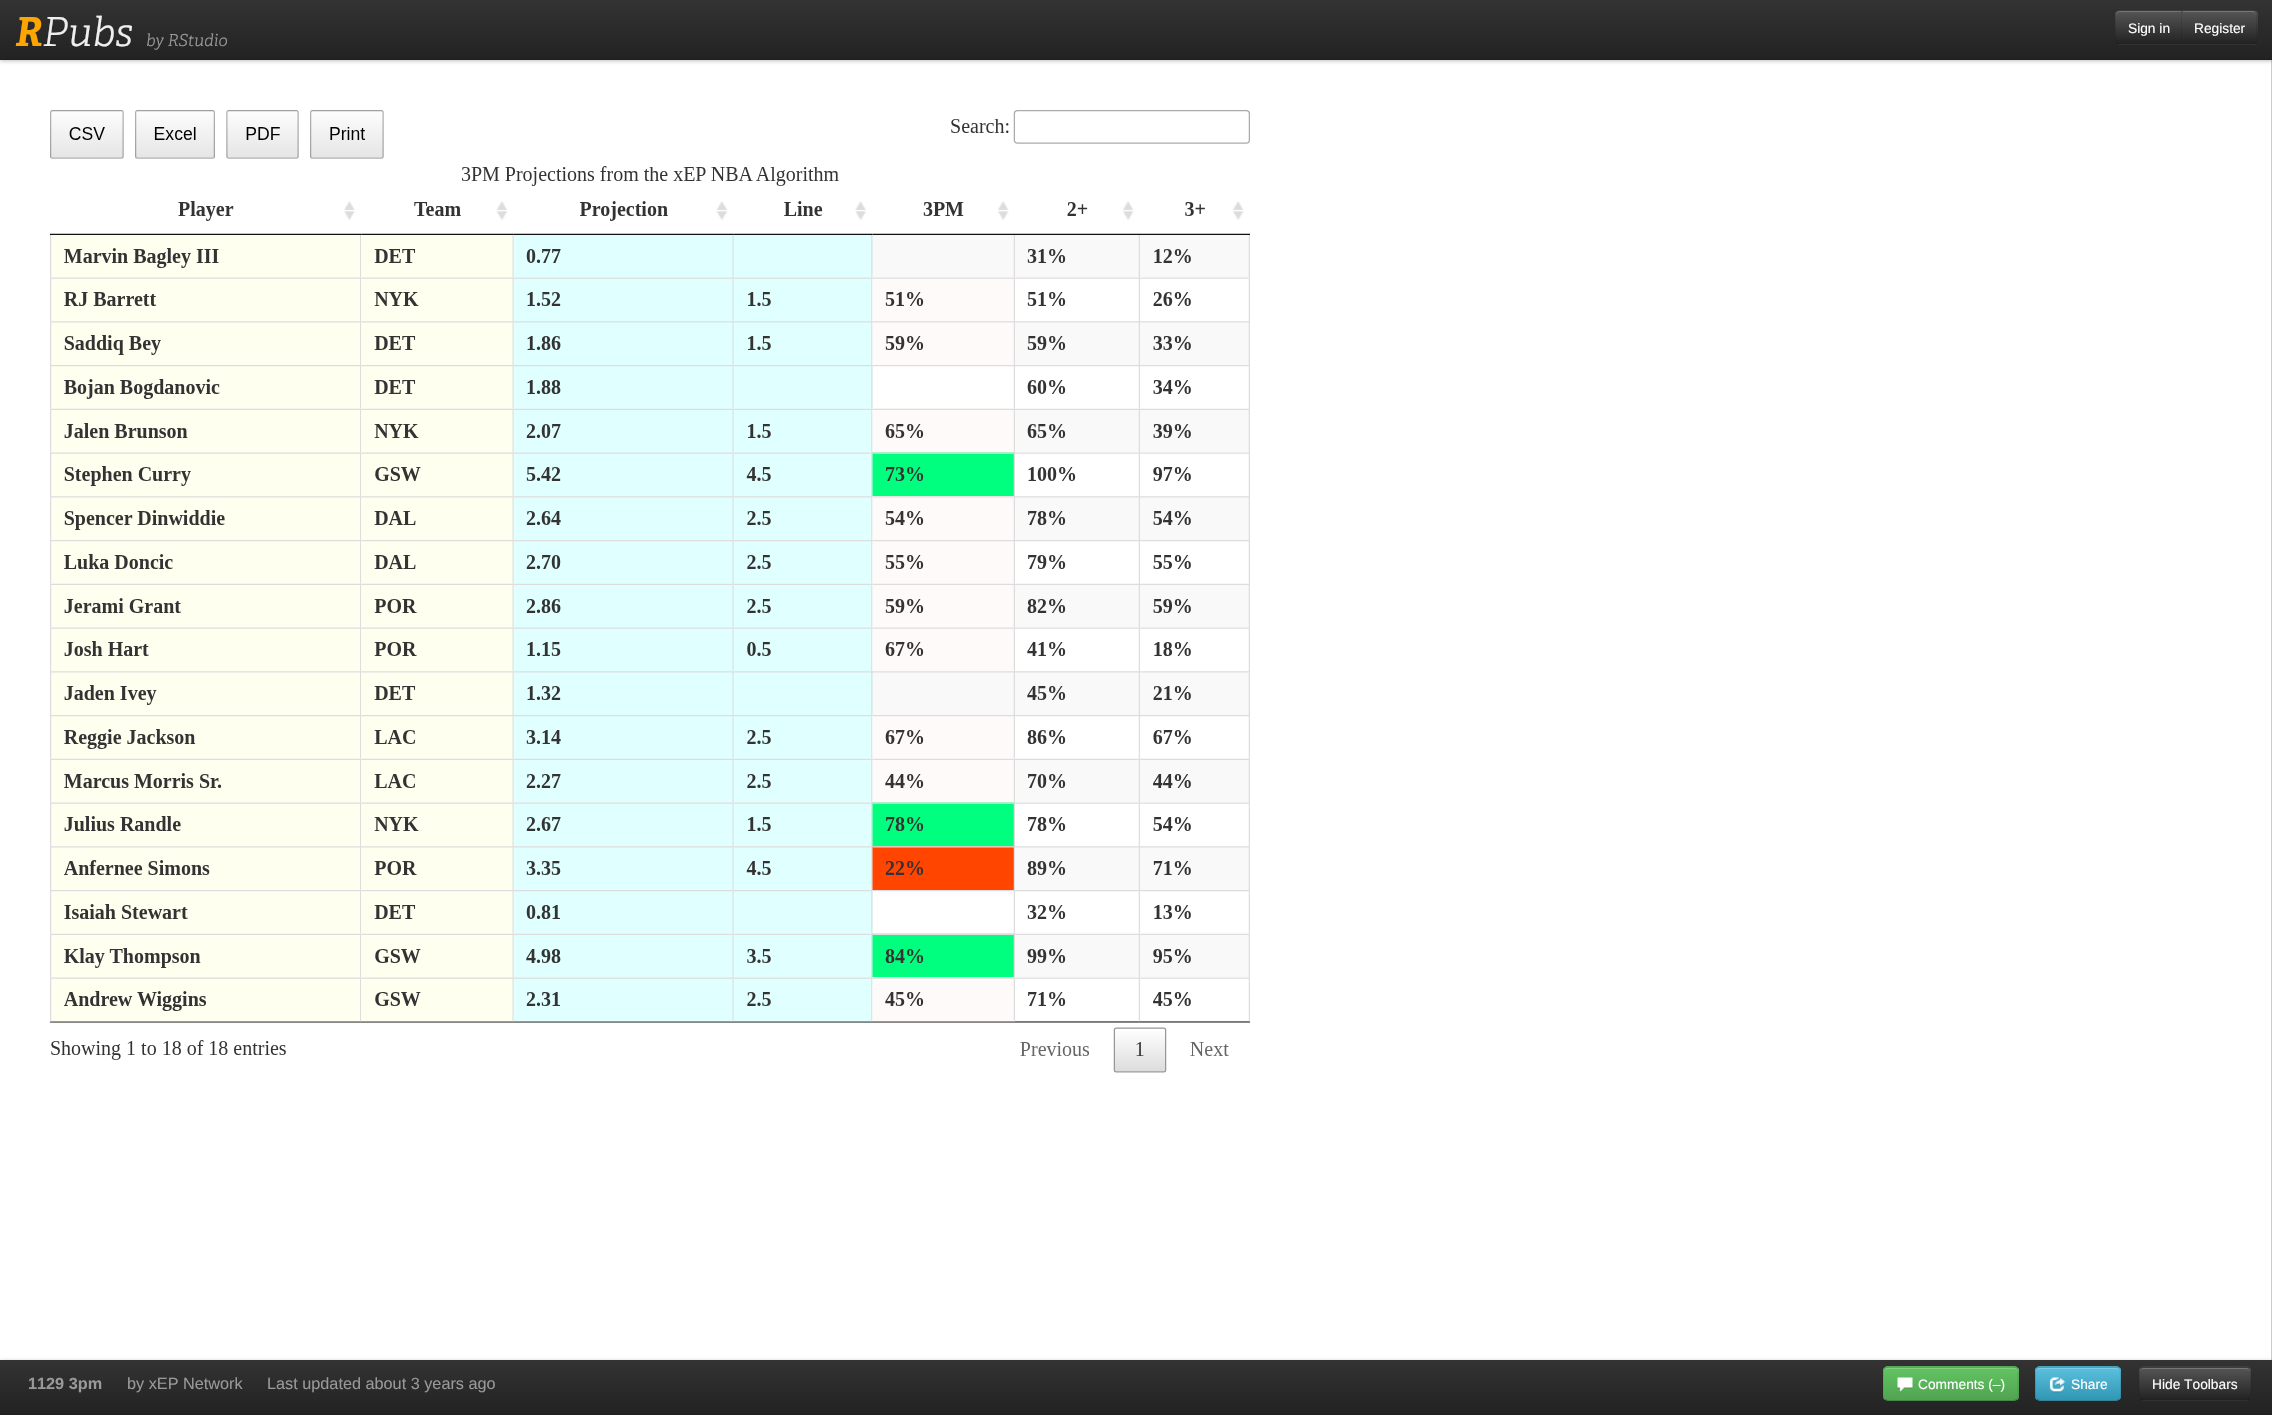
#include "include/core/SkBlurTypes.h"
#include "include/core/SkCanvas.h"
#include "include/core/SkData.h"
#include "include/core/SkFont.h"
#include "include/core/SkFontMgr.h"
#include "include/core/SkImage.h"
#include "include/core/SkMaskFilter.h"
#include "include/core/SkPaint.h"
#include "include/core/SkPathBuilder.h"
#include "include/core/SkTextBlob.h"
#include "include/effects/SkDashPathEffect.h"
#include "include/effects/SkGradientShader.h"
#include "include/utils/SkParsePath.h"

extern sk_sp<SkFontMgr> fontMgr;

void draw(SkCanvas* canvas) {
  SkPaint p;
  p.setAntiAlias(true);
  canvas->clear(SK_ColorWHITE);
  canvas->drawImageRect(SkImages::DeferredFromEncodedData(SkData::MakeFromFileName("images/1.png")), SkRect::MakeLTRB(0, 60, 2271, 1360), SkSamplingOptions());
  p.setColor(SkColorSetRGB(204, 204, 204));
  canvas->drawRect(SkRect::MakeLTRB(2271, 60, 2272, 1365), p);
  p.setColor(SkColorSetARGB(64, 0, 0, 0));
  p.setMaskFilter(SkMaskFilter::MakeBlur(kNormal_SkBlurStyle, 2));
  canvas->drawRect(SkRect::MakeLTRB(0, 1, 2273, 61), p);
  p.setMaskFilter(nullptr);
  {
    const SkColor colors[] = {SkColorSetRGB(51, 51, 51), SkColorSetRGB(34, 34, 34)};
    const float stops[] = {0, 1};
    const SkPoint ends[] = {{1136, 0}, {1136, 60}};
    p.setShader(SkGradientShader::MakeLinear(ends, colors, stops, 2, SkTileMode::kClamp));
    p.setAlpha(255);
  }
  canvas->drawRect(SkRect::MakeLTRB(0, 0, 2272, 59), p);
  p.setShader(nullptr);
  p.setColor(SkColorSetRGB(31, 31, 31));
  canvas->drawRect(SkRect::MakeLTRB(0, 59, 2272, 60), p);
  p.setColor(SkColorSetRGB(65, 65, 65));
  canvas->drawPath(SkPathBuilder().moveTo(2120, 10).lineTo(2183, 10).lineTo(2183, 45).lineTo(2120, 45).cubicTo(2117, 45, 2115, 43, 2115, 40).lineTo(2115, 15).cubicTo(2115, 12, 2117, 10, 2120, 10).close().detach(), p);
  canvas->save();
  canvas->clipPath(SkPathBuilder().moveTo(2120, 10).lineTo(2183, 10).lineTo(2183, 45).lineTo(2120, 45).cubicTo(2117, 45, 2115, 43, 2115, 40).lineTo(2115, 15).cubicTo(2115, 12, 2117, 10, 2120, 10).close().detach(), true);
  {
    const SkColor colors[] = {SkColorSetRGB(85, 85, 85), SkColorSetRGB(34, 34, 34)};
    const float stops[] = {0, 1};
    const SkPoint ends[] = {{2149, 11}, {2149, 44}};
    p.setShader(SkGradientShader::MakeLinear(ends, colors, stops, 2, SkTileMode::kClamp));
    p.setAlpha(255);
  }
  canvas->drawRect(SkRect::MakeLTRB(2115, 11, 2181, 44), p);
  canvas->restore();
  p.setShader(nullptr);
  p.setColor(SkColorSetARGB(51, 255, 255, 255));
  canvas->drawPath(SkPathBuilder().moveTo(2120, 12).lineTo(2181, 12).lineTo(2181, 11).lineTo(2120, 11).cubicTo(2118, 11, 2116, 13, 2116, 15).lineTo(2116, 16).cubicTo(2116, 14, 2118, 12, 2120, 12).close().detach(), p);
  p.setColor(SkColorSetARGB(26, 0, 0, 0));
  canvas->drawPath(SkPathBuilder().moveTo(2120, 10).cubicTo(2118, 10, 2117, 10, 2116, 11).lineTo(2117, 12).lineTo(2120, 11).lineTo(2181, 11).lineTo(2181, 12).lineTo(2182, 10).close().detach(), p);
  p.setColor(SkColorSetARGB(64, 0, 0, 0));
  canvas->drawPath(SkPathBuilder().moveTo(2120, 45).lineTo(2182, 45).lineTo(2182, 44).lineTo(2181, 44).lineTo(2120, 44).lineTo(2117, 43).lineTo(2116, 44).cubicTo(2117, 44, 2118, 45, 2120, 45).close().detach(), p);
  p.setColor(SkColorSetARGB(26, 0, 0, 0));
  canvas->drawPath(SkPathBuilder().moveTo(2115, 15).lineTo(2115, 40).cubicTo(2115, 41.5f, 2115.5f, 43, 2116.5f, 43.5f).lineTo(2117, 43).cubicTo(2116.5f, 42, 2116, 41, 2116, 40).lineTo(2116, 15).cubicTo(2116, 14, 2116.5f, 13, 2117, 12).lineTo(2116.5f, 11.5f).cubicTo(2115.5f, 12, 2115, 13.5f, 2115, 15).close().detach(), p);
  p.setColor(SkColorSetRGB(65, 65, 65));
  canvas->drawPath(SkPathBuilder().moveTo(2181, 10).lineTo(2253, 10).cubicTo(2256, 10, 2258, 12, 2258, 15).lineTo(2258, 40).cubicTo(2258, 43, 2256, 45, 2253, 45).lineTo(2181, 45).close().detach(), p);
  canvas->save();
  canvas->clipPath(SkPathBuilder().moveTo(2181, 10).lineTo(2253, 10).cubicTo(2256, 10, 2258, 12, 2258, 15).lineTo(2258, 40).cubicTo(2258, 43, 2256, 45, 2253, 45).lineTo(2181, 45).close().detach(), true);
  {
    const SkColor colors[] = {SkColorSetRGB(85, 85, 85), SkColorSetRGB(34, 34, 34)};
    const float stops[] = {0, 1};
    const SkPoint ends[] = {{2219, 11}, {2219, 44}};
    p.setShader(SkGradientShader::MakeLinear(ends, colors, stops, 2, SkTileMode::kClamp));
    p.setAlpha(255);
  }
  canvas->drawRect(SkRect::MakeLTRB(2181, 11, 2258, 44), p);
  canvas->restore();
  p.setShader(nullptr);
  p.setColor(SkColorSetRGB(118, 118, 118));
  canvas->drawPath(SkPathBuilder().moveTo(2183, 11).lineTo(2183, 12).lineTo(2252, 12).cubicTo(2255, 12, 2256, 14, 2256, 16).cubicTo(2256, 13, 2255, 11, 2252, 11).close().detach(), p);
  p.setColor(SkColorSetARGB(26, 0, 0, 0));
  canvas->drawPath(SkPathBuilder().moveTo(2181, 10).lineTo(2182, 11).lineTo(2253, 11).lineTo(2255, 12).lineTo(2256, 11).cubicTo(2255, 10, 2254, 10, 2252, 10).close().detach(), p);
  canvas->drawPath(SkPathBuilder().moveTo(2257.5f, 42).lineTo(2256, 43.5f).lineTo(2255, 42.5f).cubicTo(2256, 42, 2256, 41, 2256, 40).lineTo(2256, 15).cubicTo(2256, 14, 2256, 13, 2255, 12.5f).lineTo(2256, 11.5f).lineTo(2257.5f, 13).close().detach(), p);
  p.setColor(SkColorSetARGB(64, 0, 0, 0));
  canvas->drawPath(SkPathBuilder().moveTo(2181, 45).lineTo(2252, 45).cubicTo(2254, 45, 2255, 44, 2256, 44).lineTo(2255, 43).lineTo(2253, 44).lineTo(2182, 44).close().detach(), p);
  p.setColor(SkColorSetARGB(26, 0, 0, 0));
  canvas->drawPath(SkPathBuilder().moveTo(2182, 11).lineTo(2181, 10).lineTo(2181, 45).lineTo(2182, 44).close().detach(), p);
  p.setColor(SkColorSetARGB(64, 0, 0, 0));
  p.setMaskFilter(SkMaskFilter::MakeBlur(kNormal_SkBlurStyle, 2));
  canvas->drawRect(SkRect::MakeLTRB(0, 1361, 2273, 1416), p);
  p.setMaskFilter(nullptr);
  {
    const SkColor colors[] = {SkColorSetRGB(51, 51, 51), SkColorSetRGB(34, 34, 34)};
    const float stops[] = {0, 1};
    const SkPoint ends[] = {{1136, 1360}, {1136, 1415}};
    p.setShader(SkGradientShader::MakeLinear(ends, colors, stops, 2, SkTileMode::kClamp));
    p.setAlpha(255);
  }
  canvas->drawRect(SkRect::MakeLTRB(0, 1360, 2272, 1414), p);
  p.setShader(nullptr);
  p.setColor(SkColorSetRGB(31, 31, 31));
  canvas->drawRect(SkRect::MakeLTRB(0, 1414, 2272, 1415), p);
  p.setColor(SkColorSetRGB(91, 183, 91));
  canvas->drawRoundRect(SkRect::MakeLTRB(1883, 1366, 2019, 1401), 5, 5, p);
  canvas->save();
  canvas->clipPath(SkPathBuilder().moveTo(1888, 1366).lineTo(2014, 1366).cubicTo(2017, 1366, 2019, 1368, 2019, 1371).lineTo(2019, 1396).cubicTo(2019, 1399, 2017, 1401, 2014, 1401).lineTo(1888, 1401).cubicTo(1885, 1401, 1883, 1399, 1883, 1396).lineTo(1883, 1371).cubicTo(1883, 1368, 1885, 1366, 1888, 1366).close().detach(), true);
  {
    const SkColor colors[] = {SkColorSetRGB(98, 196, 98), SkColorSetRGB(81, 163, 81)};
    const float stops[] = {0, 1};
    const SkPoint ends[] = {{1951, 1368}, {1951, 1400}};
    p.setShader(SkGradientShader::MakeLinear(ends, colors, stops, 2, SkTileMode::kClamp));
    p.setAlpha(255);
  }
  canvas->drawRect(SkRect::MakeLTRB(1883, 1368, 2019, 1400), p);
  canvas->restore();
  p.setShader(nullptr);
  p.setColor(SkColorSetARGB(51, 255, 255, 255));
  canvas->drawPath(SkPathBuilder(SkPathFillType::kEvenOdd).moveTo(1888, 1369).lineTo(2015, 1369).cubicTo(2017, 1370, 2018, 1372, 2018, 1374).lineTo(2018, 1372).cubicTo(2018, 1370, 2016, 1368, 2014, 1368).lineTo(1888, 1368).cubicTo(1886, 1368, 1884, 1370, 1884, 1372).cubicTo(1884, 1370, 1886, 1369, 1888, 1369).close().moveTo(2018, 1393).lineTo(2018, 1398).close().detach(), p);
  p.setStyle(SkPaint::kStroke_Style);
  p.setStrokeWidth(1.2f);
  p.setColor(SkColorSetARGB(64, 0, 0, 0));
  canvas->drawPath(SkPathBuilder().moveTo(2017, 1399.5f).lineTo(2014, 1400.5f).lineTo(1908.5f, 1400.5f).lineTo(1887.5f, 1400.5f).lineTo(1884.5f, 1399.5f).detach(), p);
  p.setColor(SkColorSetARGB(26, 0, 0, 0));
  canvas->drawPath(SkPathBuilder().moveTo(1884.5f, 1399.5f).cubicTo(1881.5f, 1396.5f, 1883, 1391, 1883, 1388).cubicTo(1883, 1362, 1879.5f, 1367, 1908.5f, 1367).lineTo(1992.5f, 1367).cubicTo(2021.5f, 1367, 2018, 1362, 2018, 1388).cubicTo(2018, 1391, 2019.5f, 1396.5f, 2017, 1399.5f).detach(), p);
  canvas->drawImageRect(SkImages::DeferredFromEncodedData(SkData::MakeFromFileName("images/2.png")), SkRect::MakeLTRB(1897, 1377, 1913, 1393), SkSamplingOptions());
  p.setStyle(SkPaint::kFill_Style);
  p.setColor(SkColorSetRGB(73, 175, 205));
  canvas->drawRoundRect(SkRect::MakeLTRB(2035, 1366, 2121, 1401), 5, 5, p);
  canvas->save();
  canvas->clipPath(SkPathBuilder().moveTo(2040, 1366).lineTo(2116, 1366).cubicTo(2119, 1366, 2121, 1368, 2121, 1371).lineTo(2121, 1396).cubicTo(2121, 1399, 2119, 1401, 2116, 1401).lineTo(2040, 1401).cubicTo(2037, 1401, 2035, 1399, 2035, 1396).lineTo(2035, 1371).cubicTo(2035, 1368, 2037, 1366, 2040, 1366).close().detach(), true);
  {
    const SkColor colors[] = {SkColorSetRGB(91, 192, 222), SkColorSetRGB(47, 150, 180)};
    const float stops[] = {0, 1};
    const SkPoint ends[] = {{2078, 1368}, {2078, 1400}};
    p.setShader(SkGradientShader::MakeLinear(ends, colors, stops, 2, SkTileMode::kClamp));
    p.setAlpha(255);
  }
  canvas->drawRect(SkRect::MakeLTRB(2035, 1368, 2121, 1400), p);
  canvas->restore();
  p.setShader(nullptr);
  p.setColor(SkColorSetRGB(123, 204, 228));
  canvas->drawPath(SkPathBuilder().moveTo(2040, 1369).lineTo(2116, 1369).cubicTo(2118, 1369, 2120, 1370, 2120, 1372).cubicTo(2120, 1370, 2118, 1368, 2116, 1368).lineTo(2040, 1368).cubicTo(2038, 1368, 2036, 1370, 2036, 1372).cubicTo(2036, 1370, 2038, 1369, 2040, 1369).close().detach(), p);
  p.setStyle(SkPaint::kStroke_Style);
  p.setColor(SkColorSetARGB(64, 0, 0, 0));
  canvas->drawPath(SkPathBuilder().moveTo(2119.5f, 1399.5f).lineTo(2116.5f, 1400.5f).lineTo(2039.5f, 1400.5f).lineTo(2037, 1399.5f).detach(), p);
  p.setColor(SkColorSetARGB(26, 0, 0, 0));
  canvas->drawPath(SkPathBuilder().moveTo(2037, 1399.5f).cubicTo(2034.5f, 1397, 2035.5f, 1387, 2035.5f, 1384).cubicTo(2035.5f, 1364.5f, 2033, 1367, 2052.5f, 1367).lineTo(2103.5f, 1367).cubicTo(2123, 1367, 2120.5f, 1364.5f, 2120.5f, 1384).cubicTo(2120.5f, 1387, 2122, 1397, 2119.5f, 1399.5f).detach(), p);
  canvas->drawImageRect(SkImages::DeferredFromEncodedData(SkData::MakeFromFileName("images/3.png")), SkRect::MakeLTRB(2049, 1377, 2066, 1393), SkSamplingOptions());
  p.setStyle(SkPaint::kFill_Style);
  p.setColor(SkColorSetRGB(65, 65, 65));
  canvas->drawRoundRect(SkRect::MakeLTRB(2139, 1366, 2251, 1401), 5, 5, p);
  canvas->save();
  canvas->clipPath(SkPathBuilder().moveTo(2144, 1366).lineTo(2246, 1366).cubicTo(2249, 1366, 2251, 1368, 2251, 1371).lineTo(2251, 1396).cubicTo(2251, 1399, 2249, 1401, 2246, 1401).lineTo(2144, 1401).cubicTo(2141, 1401, 2139, 1399, 2139, 1396).lineTo(2139, 1371).cubicTo(2139, 1368, 2141, 1366, 2144, 1366).close().detach(), true);
  {
    const SkColor colors[] = {SkColorSetRGB(85, 85, 85), SkColorSetRGB(34, 34, 34)};
    const float stops[] = {0, 1};
    const SkPoint ends[] = {{2195, 1368}, {2195, 1400}};
    p.setShader(SkGradientShader::MakeLinear(ends, colors, stops, 2, SkTileMode::kClamp));
    p.setAlpha(255);
  }
  canvas->drawRect(SkRect::MakeLTRB(2139, 1368, 2251, 1400), p);
  canvas->restore();
  p.setShader(nullptr);
  p.setColor(SkColorSetRGB(118, 118, 118));
  canvas->drawPath(SkPathBuilder().moveTo(2144, 1369).lineTo(2246, 1369).cubicTo(2248, 1369, 2250, 1370, 2250, 1372).cubicTo(2250, 1370, 2248, 1368, 2246, 1368).lineTo(2144, 1368).cubicTo(2142, 1368, 2140, 1370, 2140, 1372).cubicTo(2140, 1370, 2142, 1369, 2144, 1369).close().detach(), p);
  p.setStyle(SkPaint::kStroke_Style);
  p.setColor(SkColorSetARGB(64, 0, 0, 0));
  canvas->drawPath(SkPathBuilder().moveTo(2249.5f, 1399.5f).lineTo(2246.5f, 1400.5f).lineTo(2143.5f, 1400.5f).lineTo(2140.5f, 1399.5f).detach(), p);
  p.setColor(SkColorSetARGB(26, 0, 0, 0));
  canvas->drawPath(SkPathBuilder().moveTo(2140.5f, 1399.5f).cubicTo(2138, 1396.5f, 2139.5f, 1391, 2139.5f, 1388).cubicTo(2139.5f, 1363.5f, 2135.5f, 1367, 2161, 1367).lineTo(2229, 1367).cubicTo(2254.5f, 1367, 2250.5f, 1363.5f, 2250.5f, 1388).cubicTo(2250.5f, 1391, 2252, 1396.5f, 2249.5f, 1399.5f).detach(), p);
  SkFont font1(fontMgr->matchFamilyStyle("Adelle", SkFontStyle::BoldItalic()), 40);
  font1.setSubpixel(true);
  p.setStyle(SkPaint::kFill_Style);
  p.setColor(SkColorSetRGB(255, 165, 0));
  canvas->drawString("R", 15, 46, font1, p);
  SkFont font2(fontMgr->matchFamilyStyle("Adelle", SkFontStyle(300, SkFontStyle::kNormal_Width, SkFontStyle::kItalic_Slant)), 40);
  font2.setSubpixel(true);
  p.setColor(SkColorSetRGB(238, 238, 238));
  canvas->drawString("Pubs", 42, 46, font2, p);
  SkFont font3(fontMgr->matchFamilyStyle("Adelle", SkFontStyle(300, SkFontStyle::kNormal_Width, SkFontStyle::kItalic_Slant)), 16.5f);
  font3.setSubpixel(true);
  p.setColor(SkColorSetRGB(153, 153, 153));
  canvas->drawString("by RStudio", 146, 46, font3, p);
  SkFont font4(fontMgr->matchFamilyStyle("Liberation Sans", SkFontStyle::Normal()), 13.75f);
  font4.setSubpixel(true);
  p.setColor(SK_ColorWHITE);
  canvas->drawString("Sign in", 2128, 33, font4, p);
  canvas->drawString("Register", 2194, 33, font4, p);
  SkFont font5(fontMgr->matchFamilyStyle("Liberation Sans", SkFontStyle::Bold()), 16.25f);
  font5.setSubpixel(true);
  p.setColor(SkColorSetRGB(153, 153, 153));
  canvas->drawString("1129 3pm", 28, 1389, font5, p);
  SkFont font6(fontMgr->matchFamilyStyle("Liberation Sans", SkFontStyle::Normal()), 16.25f);
  font6.setSubpixel(true);
  canvas->drawString("by xEP Network", 127, 1389, font6, p);
  canvas->drawString("Last updated about 3 years ago", 267, 1389, font6, p);
  p.setColor(SK_ColorWHITE);
  canvas->drawString("Comments (–)", 1918, 1389, font4, p);
  canvas->drawString("Share", 2071, 1389, font4, p);
  canvas->drawString("Hide Toolbars", 2152, 1389, font4, p);
}
